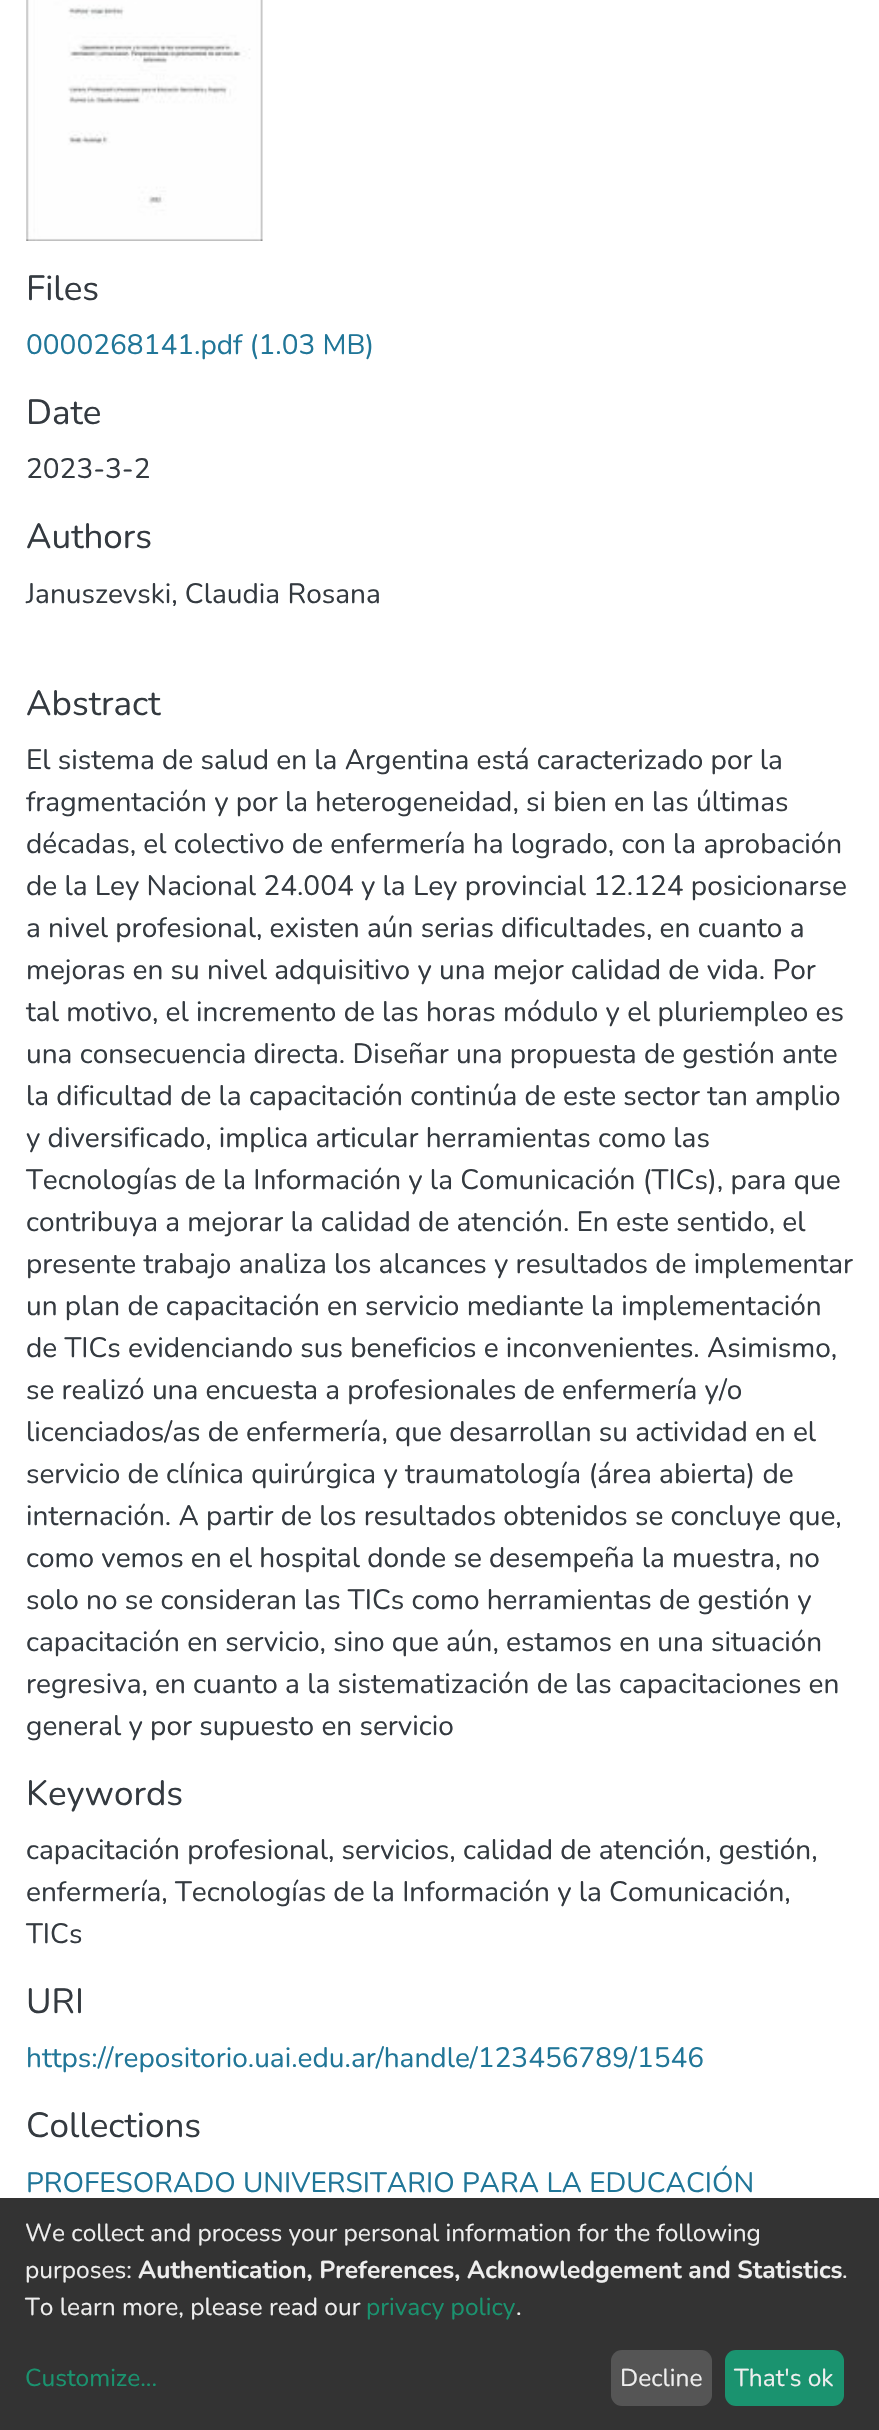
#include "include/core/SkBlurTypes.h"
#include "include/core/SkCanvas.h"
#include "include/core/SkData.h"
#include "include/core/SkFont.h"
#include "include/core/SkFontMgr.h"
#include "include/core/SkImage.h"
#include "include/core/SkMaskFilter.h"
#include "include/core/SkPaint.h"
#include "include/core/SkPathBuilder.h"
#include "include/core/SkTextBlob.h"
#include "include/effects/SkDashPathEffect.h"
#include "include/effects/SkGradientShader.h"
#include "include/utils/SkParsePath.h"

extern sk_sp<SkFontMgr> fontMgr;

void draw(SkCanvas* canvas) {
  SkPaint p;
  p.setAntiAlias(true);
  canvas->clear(SK_ColorWHITE);
  canvas->drawImageRect(SkImages::DeferredFromEncodedData(SkData::MakeFromFileName("images/1.png")), SkRect::MakeLTRB(26, 0, 263, 241), SkSamplingOptions());
  p.setColor(SkColorSetRGB(51, 51, 51));
  canvas->drawRect(SkRect::MakeLTRB(0, 2198, 879, 2430), p);
  p.setColor(SkColorSetRGB(85, 85, 85));
  canvas->drawRoundRect(SkRect::MakeLTRB(611, 2350, 712, 2406), 11, 11, p);
  p.setColor(SkColorSetRGB(26, 147, 111));
  canvas->drawRoundRect(SkRect::MakeLTRB(725, 2350, 844, 2406), 11, 11, p);
  SkFont font1(fontMgr->matchFamilyStyle("Nunito", SkFontStyle::Normal()), 35);
  font1.setSubpixel(true);
  p.setColor(SkColorSetRGB(52, 58, 64));
  canvas->drawString("Files", 26, 300, font1, p);
  SkFont font2(fontMgr->matchFamilyStyle("Nunito", SkFontStyle::Normal()), 28);
  font2.setSubpixel(true);
  p.setColor(SkColorSetRGB(32, 118, 152));
  canvas->drawString("0000268141.pdf (1.03 MB)", 26, 354, font2, p);
  p.setColor(SkColorSetRGB(52, 58, 64));
  canvas->drawString("Date", 26, 424, font1, p);
  canvas->drawString("2023-3-2", 26, 478, font2, p);
  canvas->drawString("Authors", 26, 548, font1, p);
  canvas->drawString("Januszevski, Claudia Rosana", 26, 603, font2, p);
  canvas->drawString("Abstract", 26, 715, font1, p);
  canvas->drawString("El sistema de salud en la Argentina está caracterizado por la", 26, 769, font2, p);
  canvas->drawString("fragmentación y por la heterogeneidad, si bien en las últimas", 26, 811, font2, p);
  canvas->drawString("décadas, el colectivo de enfermería ha logrado, con la aprobación", 26, 853, font2, p);
  canvas->drawString("de la Ley Nacional 24.004 y la Ley provincial 12.124 posicionarse", 26, 895, font2, p);
  canvas->drawString("a nivel profesional, existen aún serias dificultades, en cuanto a", 26, 937, font2, p);
  canvas->drawString("mejoras en su nivel adquisitivo y una mejor calidad de vida. Por", 26, 979, font2, p);
  canvas->drawString("tal motivo, el incremento de las horas módulo y el pluriempleo es", 26, 1021, font2, p);
  canvas->drawString("una consecuencia directa. Diseñar una propuesta de gestión ante", 26, 1063, font2, p);
  canvas->drawString("la dificultad de la capacitación continúa de este sector tan amplio", 26, 1105, font2, p);
  canvas->drawString("y diversificado, implica articular herramientas como las", 26, 1147, font2, p);
  canvas->drawString("Tecnologías de la Información y la Comunicación (TICs), para que", 26, 1189, font2, p);
  canvas->drawString("contribuya a mejorar la calidad de atención. En este sentido, el", 26, 1231, font2, p);
  canvas->drawString("presente trabajo analiza los alcances y resultados de implementar", 26, 1273, font2, p);
  canvas->drawString("un plan de capacitación en servicio mediante la implementación", 26, 1315, font2, p);
  canvas->drawString("de TICs evidenciando sus beneficios e inconvenientes. Asimismo,", 26, 1357, font2, p);
  canvas->drawString("se realizó una encuesta a profesionales de enfermería y/o", 26, 1399, font2, p);
  canvas->drawString("licenciados/as de enfermería, que desarrollan su actividad en el", 26, 1441, font2, p);
  canvas->drawString("servicio de clínica quirúrgica y traumatología (área abierta) de", 26, 1483, font2, p);
  canvas->drawString("internación. A partir de los resultados obtenidos se concluye que,", 26, 1525, font2, p);
  canvas->drawString("como vemos en el hospital donde se desempeña la muestra, no", 26, 1567, font2, p);
  canvas->drawString("solo no se consideran las TICs como herramientas de gestión y", 26, 1609, font2, p);
  canvas->drawString("capacitación en servicio, sino que aún, estamos en una situación", 26, 1651, font2, p);
  canvas->drawString("regresiva, en cuanto a la sistematización de las capacitaciones en", 26, 1693, font2, p);
  canvas->drawString("general y por supuesto en servicio", 26, 1735, font2, p);
  canvas->drawString("Keywords", 26, 1805, font1, p);
  canvas->drawString("capacitación profesional, servicios, calidad de atención, gestión,", 26, 1859, font2, p);
  canvas->drawString("enfermería, Tecnologías de la Información y la Comunicación,", 26, 1901, font2, p);
  canvas->drawString("TICs", 26, 1943, font2, p);
  canvas->drawString("URI", 26, 2013, font1, p);
  p.setColor(SkColorSetRGB(32, 118, 152));
  canvas->drawString("https://repositorio.uai.edu.ar/handle/123456789/1546", 26, 2067, font2, p);
  p.setColor(SkColorSetRGB(52, 58, 64));
  canvas->drawString("Collections", 26, 2137, font1, p);
  p.setColor(SkColorSetRGB(32, 118, 152));
  canvas->drawString("PROFESORADO UNIVERSITARIO PARA LA EDUCACIÓN", 26, 2192, font2, p);
  SkFont font3(fontMgr->matchFamilyStyle("Nunito", SkFontStyle::Normal()), 24.5f);
  font3.setSubpixel(true);
  p.setColor(SkColorSetRGB(238, 238, 238));
  canvas->drawString("We collect and process your personal information for the following", 25, 2241, font3, p);
  canvas->drawString("purposes:", 25, 2278, font3, p);
  SkFont font4(fontMgr->matchFamilyStyle("Nunito", SkFontStyle::Bold()), 24.5f);
  font4.setSubpixel(true);
  canvas->drawString("Authentication, Preferences, Acknowledgement and Statistics", 138, 2278, font4, p);
  canvas->drawString(".", 842, 2278, font3, p);
  canvas->drawString("To learn more, please read our", 25, 2315, font3, p);
  p.setColor(SkColorSetRGB(26, 147, 111));
  canvas->drawString("privacy policy", 366, 2315, font3, p);
  p.setColor(SkColorSetRGB(238, 238, 238));
  canvas->drawString(".", 516, 2315, font3, p);
  p.setColor(SkColorSetRGB(26, 147, 111));
  canvas->drawString("Customize...", 25, 2386, font3, p);
  p.setColor(SkColorSetRGB(238, 238, 238));
  canvas->drawString("Decline", 620, 2386, font3, p);
  canvas->drawString("That's ok", 734, 2386, font3, p);
}
